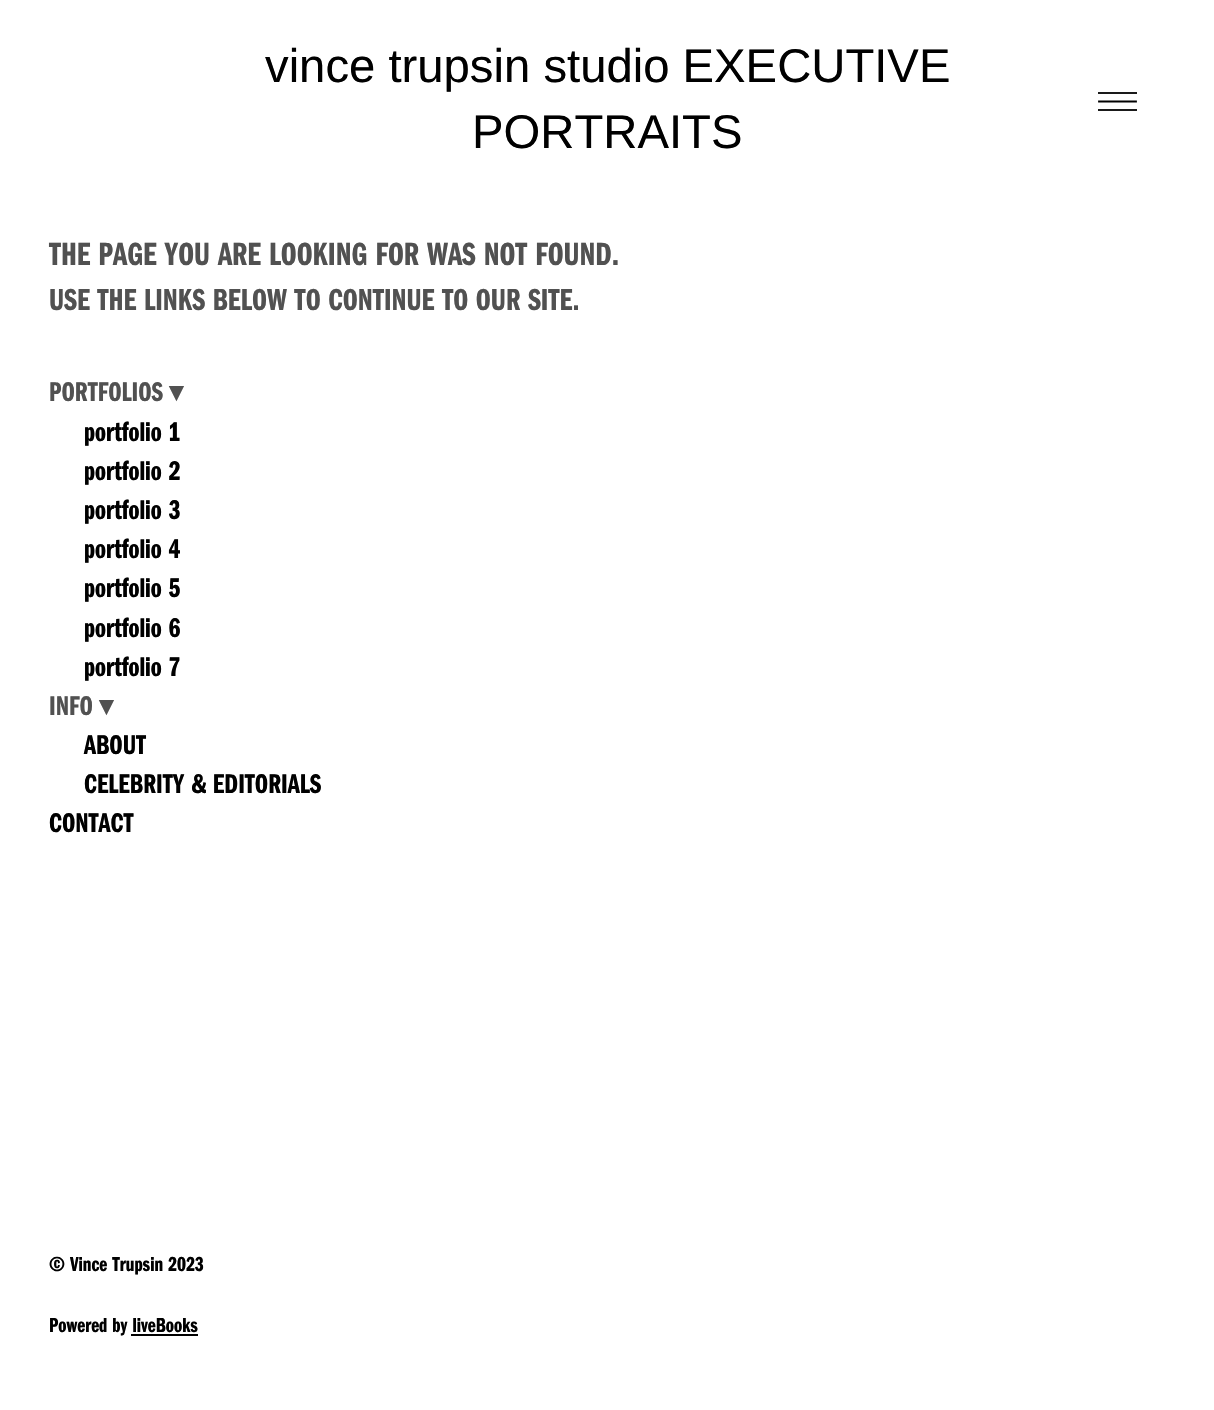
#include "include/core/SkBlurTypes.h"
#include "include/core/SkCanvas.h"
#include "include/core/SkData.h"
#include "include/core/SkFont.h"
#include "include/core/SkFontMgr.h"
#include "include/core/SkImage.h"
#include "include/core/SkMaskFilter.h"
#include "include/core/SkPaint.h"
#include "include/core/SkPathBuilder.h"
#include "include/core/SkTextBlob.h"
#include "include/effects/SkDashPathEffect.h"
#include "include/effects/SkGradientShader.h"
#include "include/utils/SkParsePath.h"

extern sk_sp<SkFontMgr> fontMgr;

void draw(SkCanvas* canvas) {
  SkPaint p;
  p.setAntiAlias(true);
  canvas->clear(SK_ColorWHITE);
  p.setColor(SkColorSetRGB(26, 26, 26));
  canvas->drawRect(SkRect::MakeLTRB(1098, 92, 1137, 94), p);
  p.setStyle(SkPaint::kStroke_Style);
  p.setStrokeWidth(1.8f);
  p.setStrokeCap(SkPaint::kSquare_Cap);
  p.setColor(SK_ColorBLACK);
  canvas->drawPath(SkPathBuilder().moveTo(1099, 101.5f).lineTo(1136, 101.5f).detach(), p);
  p.setStyle(SkPaint::kFill_Style);
  p.setColor(SkColorSetRGB(26, 26, 26));
  canvas->drawRect(SkRect::MakeLTRB(1098, 109, 1137, 111), p);
  p.setColor(SK_ColorBLACK);
  canvas->drawRect(SkRect::MakeLTRB(131, 1334, 198, 1336), p);
  SkFont font1(fontMgr->matchFamilyStyle("Liberation Sans", SkFontStyle::Normal()), 47.25f);
  font1.setSubpixel(true);
  canvas->drawString("vince trupsin studio EXECUTIVE", 265, 82, font1, p);
  canvas->drawString("PORTRAITS", 472, 148, font1, p);
  SkFont font2(fontMgr->matchFamilyStyle("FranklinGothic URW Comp", SkFontStyle(600, SkFontStyle::kNormal_Width, SkFontStyle::kUpright_Slant)), 33.25f);
  font2.setSubpixel(true);
  p.setColor(SkColorSetRGB(81, 81, 81));
  canvas->drawString("THE PAGE YOU ARE LOOKING FOR WAS NOT FOUND.", 49, 265, font2, p);
  SkFont font3(fontMgr->matchFamilyStyle("FranklinGothic URW Comp", SkFontStyle(600, SkFontStyle::kNormal_Width, SkFontStyle::kUpright_Slant)), 31.5f);
  font3.setSubpixel(true);
  canvas->drawString("USE THE LINKS BELOW TO CONTINUE TO OUR SITE.", 49, 310, font3, p);
  SkFont font4(fontMgr->matchFamilyStyle("FranklinGothic URW Comp", SkFontStyle(600, SkFontStyle::kNormal_Width, SkFontStyle::kUpright_Slant)), 28);
  font4.setSubpixel(true);
  canvas->drawString("PORTFOLIOS", 49, 401, font4, p);
  SkFont font5(fontMgr->matchFamilyStyle("DejaVu Sans", SkFontStyle::Bold()), 28);
  font5.setSubpixel(true);
  canvas->drawString("▾", 169, 401, font5, p);
  p.setColor(SK_ColorBLACK);
  canvas->drawString("portfolio 1", 84, 441, font4, p);
  canvas->drawString("portfolio 2", 84, 480, font4, p);
  canvas->drawString("portfolio 3", 84, 519, font4, p);
  canvas->drawString("portfolio 4", 84, 558, font4, p);
  canvas->drawString("portfolio 5", 84, 597, font4, p);
  canvas->drawString("portfolio 6", 84, 637, font4, p);
  canvas->drawString("portfolio 7", 84, 676, font4, p);
  p.setColor(SkColorSetRGB(81, 81, 81));
  canvas->drawString("INFO", 49, 715, font4, p);
  canvas->drawString("▾", 99, 715, font5, p);
  p.setColor(SK_ColorBLACK);
  canvas->drawString("ABOUT", 84, 754, font4, p);
  canvas->drawString("CELEBRITY & EDITORIALS", 84, 793, font4, p);
  canvas->drawString("CONTACT", 49, 832, font4, p);
  SkFont font6(fontMgr->matchFamilyStyle("FranklinGothic URW Comp", SkFontStyle(600, SkFontStyle::kNormal_Width, SkFontStyle::kUpright_Slant)), 21);
  font6.setSubpixel(true);
  canvas->drawString("© Vince Trupsin 2023", 49, 1271, font6, p);
  canvas->drawString("Powered by liveBooks", 49, 1332, font6, p);
}
